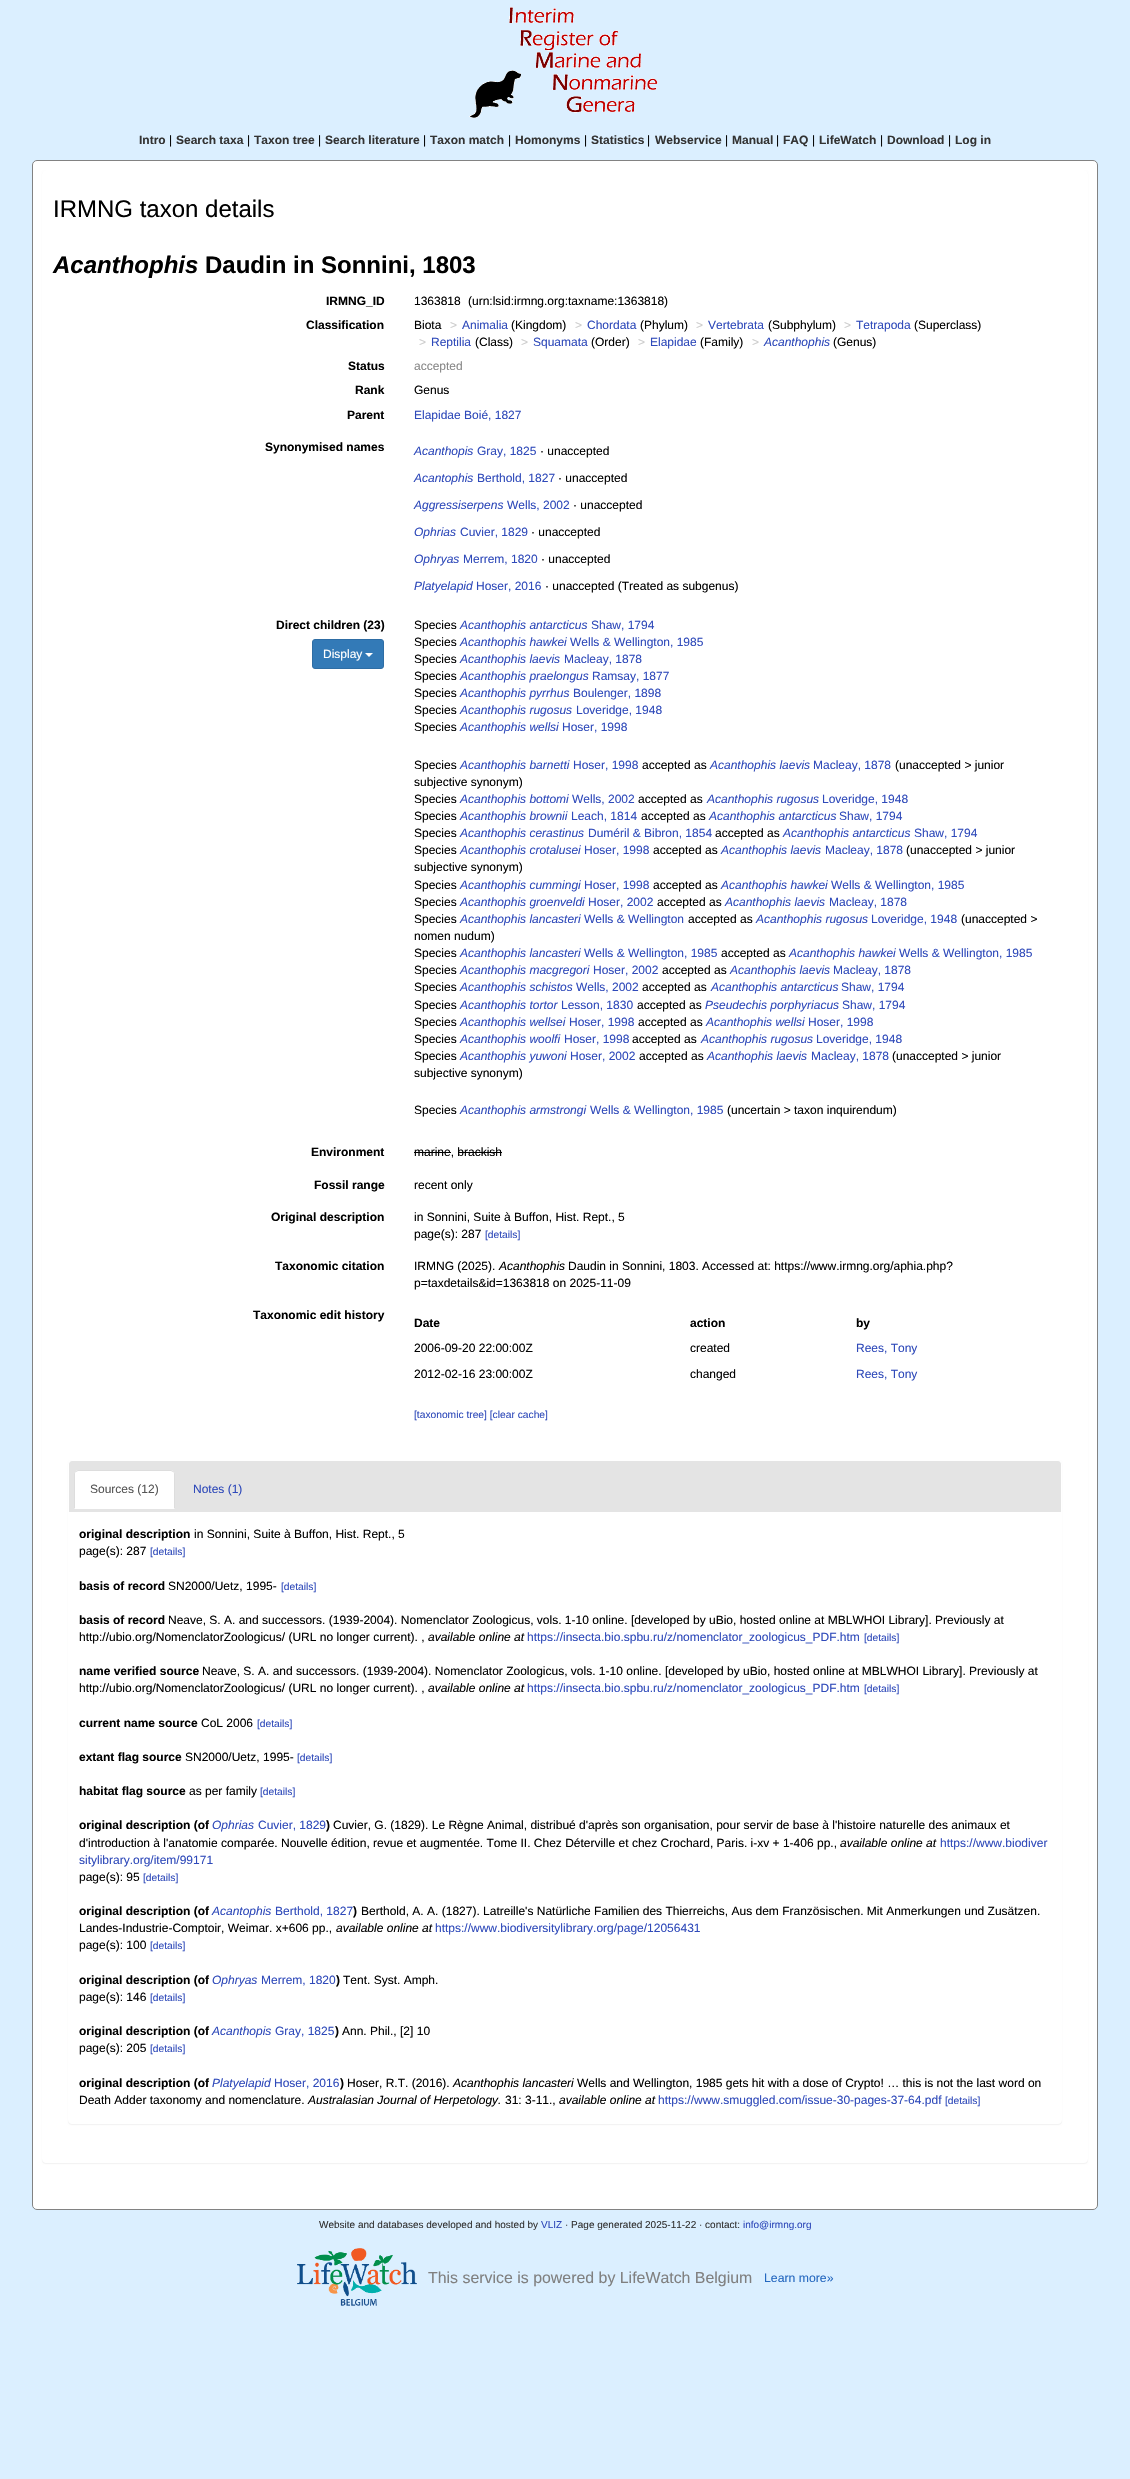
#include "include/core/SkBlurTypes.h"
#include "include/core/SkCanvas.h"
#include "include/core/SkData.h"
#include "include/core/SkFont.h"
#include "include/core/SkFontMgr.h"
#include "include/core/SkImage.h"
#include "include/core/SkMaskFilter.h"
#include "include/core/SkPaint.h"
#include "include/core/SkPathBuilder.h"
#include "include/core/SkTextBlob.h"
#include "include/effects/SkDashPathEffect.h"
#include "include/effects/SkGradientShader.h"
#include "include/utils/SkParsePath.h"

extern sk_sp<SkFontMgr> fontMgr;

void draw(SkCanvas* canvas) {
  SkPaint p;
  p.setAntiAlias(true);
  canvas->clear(SkColorSetRGB(219, 239, 255));
  canvas->drawImageRect(SkImages::DeferredFromEncodedData(SkData::MakeFromFileName("images/1.png")), SkRect::MakeLTRB(469, 7, 658, 118), SkSamplingOptions());
  p.setColor(SK_ColorWHITE);
  canvas->drawRoundRect(SkRect::MakeLTRB(32.5f, 160.5f, 1097.5f, 2209.5f), 4.5f, 4.5f, p);
  p.setStyle(SkPaint::kStroke_Style);
  p.setStrokeWidth(1);
  p.setColor(SkColorSetRGB(130, 130, 130));
  canvas->drawRoundRect(SkRect::MakeLTRB(32.5f, 160.5f, 1097.5f, 2209.5f), 4.5f, 4.5f, p);
  canvas->save();
  canvas->clipPath(SkPathBuilder(SkPathFillType::kEvenOdd).moveTo(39, 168).lineTo(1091, 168).lineTo(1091, 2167).lineTo(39, 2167).close().moveTo(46, 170).lineTo(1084, 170).cubicTo(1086, 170, 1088, 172, 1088, 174).lineTo(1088, 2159).cubicTo(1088, 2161, 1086, 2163, 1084, 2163).lineTo(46, 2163).cubicTo(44, 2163, 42, 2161, 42, 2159).lineTo(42, 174).cubicTo(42, 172, 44, 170, 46, 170).close().detach(), true);
  p.setStyle(SkPaint::kFill_Style);
  p.setColor(SkColorSetARGB(13, 0, 0, 0));
  p.setMaskFilter(SkMaskFilter::MakeBlur(kNormal_SkBlurStyle, 0.5f));
  canvas->drawRoundRect(SkRect::MakeLTRB(42, 171, 1088, 2164), 4, 4, p);
  p.setMaskFilter(nullptr);
  canvas->restore();
  p.setColor(SkColorSetRGB(51, 122, 183));
  canvas->drawRoundRect(SkRect::MakeLTRB(312.5f, 639.5f, 383.5f, 668.5f), 2.5f, 2.5f, p);
  p.setStyle(SkPaint::kStroke_Style);
  p.setColor(SkColorSetRGB(46, 109, 164));
  canvas->drawRoundRect(SkRect::MakeLTRB(312.5f, 639.5f, 383.5f, 668.5f), 2.5f, 2.5f, p);
  p.setStyle(SkPaint::kFill_Style);
  p.setColor(SK_ColorWHITE);
  canvas->drawPath(SkPathBuilder().moveTo(365, 653).lineTo(373, 653).lineTo(369, 657).close().detach(), p);
  p.setColor(SK_ColorBLACK);
  canvas->drawRect(SkRect::MakeLTRB(414, 1152, 451, 1153), p);
  canvas->drawRect(SkRect::MakeLTRB(458, 1152, 502, 1153), p);
  canvas->save();
  canvas->clipPath(SkPathBuilder(SkPathFillType::kEvenOdd).moveTo(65, 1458).lineTo(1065, 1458).lineTo(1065, 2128).lineTo(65, 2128).close().moveTo(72, 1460).lineTo(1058, 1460).cubicTo(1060, 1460, 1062, 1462, 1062, 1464).lineTo(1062, 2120).cubicTo(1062, 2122, 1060, 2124, 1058, 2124).lineTo(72, 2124).cubicTo(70, 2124, 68, 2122, 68, 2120).lineTo(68, 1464).cubicTo(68, 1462, 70, 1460, 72, 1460).close().detach(), true);
  p.setColor(SkColorSetARGB(13, 0, 0, 0));
  p.setMaskFilter(SkMaskFilter::MakeBlur(kNormal_SkBlurStyle, 0.5f));
  canvas->drawRoundRect(SkRect::MakeLTRB(68, 1461, 1062, 2125), 4, 4, p);
  p.setMaskFilter(nullptr);
  canvas->restore();
  p.setColor(SkColorSetRGB(228, 228, 228));
  canvas->drawPath(SkPathBuilder().moveTo(72, 1461).lineTo(1058, 1461).cubicTo(1059.5f, 1461, 1061, 1462.5f, 1061, 1464).lineTo(1061, 1512).lineTo(69, 1512).lineTo(69, 1464).cubicTo(69, 1462.5f, 70.5f, 1461, 72, 1461).close().detach(), p);
  p.setColor(SK_ColorWHITE);
  canvas->drawPath(SkPathBuilder().moveTo(78, 1470).lineTo(171, 1470).cubicTo(173, 1470, 175, 1472, 175, 1474).lineTo(175, 1509).lineTo(74, 1509).lineTo(74, 1474).cubicTo(74, 1472, 76, 1470, 78, 1470).close().detach(), p);
  p.setColor(SkColorSetRGB(221, 221, 221));
  canvas->drawPath(SkPathBuilder().moveTo(78, 1470).lineTo(75, 1471).lineTo(76, 1472).lineTo(78, 1471).lineTo(171, 1471).lineTo(173, 1472).lineTo(174, 1471).lineTo(171, 1470).close().detach(), p);
  canvas->drawPath(SkPathBuilder().moveTo(175, 1509).lineTo(175, 1474).cubicTo(175, 1473, 174.5f, 1472, 174, 1471).lineTo(173, 1472).cubicTo(174, 1472, 174, 1473, 174, 1474).lineTo(174, 1508).close().detach(), p);
  canvas->drawPath(SkPathBuilder().moveTo(74, 1509).lineTo(75, 1508).lineTo(75, 1474).cubicTo(75, 1473, 75, 1472, 76, 1472).lineTo(75, 1471).cubicTo(74.5f, 1472, 74, 1473, 74, 1474).close().detach(), p);
  canvas->drawImageRect(SkImages::DeferredFromEncodedData(SkData::MakeFromFileName("images/2.png")), SkRect::MakeLTRB(297, 2248, 417, 2306), SkSamplingOptions());
  SkFont font1(fontMgr->matchFamilyStyle("Liberation Sans", SkFontStyle::Bold()), 12);
  font1.setSubpixel(true);
  p.setColor(SkColorSetRGB(51, 51, 51));
  canvas->drawString("Intro", 139, 144, font1, p);
  SkFont font2(fontMgr->matchFamilyStyle("Liberation Sans", SkFontStyle::Normal()), 12);
  font2.setSubpixel(true);
  p.setColor(SK_ColorBLACK);
  canvas->drawString("|", 169, 144, font2, p);
  p.setColor(SkColorSetRGB(51, 51, 51));
  canvas->drawString("Search taxa", 176, 144, font1, p);
  p.setColor(SK_ColorBLACK);
  canvas->drawString("|", 247, 144, font2, p);
  p.setColor(SkColorSetRGB(51, 51, 51));
  canvas->drawString("Taxon tree", 254, 144, font1, p);
  p.setColor(SK_ColorBLACK);
  canvas->drawString("|", 318, 144, font2, p);
  p.setColor(SkColorSetRGB(51, 51, 51));
  canvas->drawString("Search literature", 325, 144, font1, p);
  p.setColor(SK_ColorBLACK);
  canvas->drawString("|", 423, 144, font2, p);
  p.setColor(SkColorSetRGB(51, 51, 51));
  canvas->drawString("Taxon match", 430, 144, font1, p);
  p.setColor(SK_ColorBLACK);
  canvas->drawString("|", 508, 144, font2, p);
  p.setColor(SkColorSetRGB(51, 51, 51));
  canvas->drawString("Homonyms", 515, 144, font1, p);
  p.setColor(SK_ColorBLACK);
  canvas->drawString("|", 584, 144, font2, p);
  p.setColor(SkColorSetRGB(51, 51, 51));
  canvas->drawString("Statistics", 591, 144, font1, p);
  p.setColor(SK_ColorBLACK);
  canvas->drawString("|", 647, 144, font2, p);
  p.setColor(SkColorSetRGB(51, 51, 51));
  canvas->drawString("Webservice", 655, 144, font1, p);
  p.setColor(SK_ColorBLACK);
  canvas->drawString("|", 725, 144, font2, p);
  p.setColor(SkColorSetRGB(51, 51, 51));
  canvas->drawString("Manual", 732, 144, font1, p);
  p.setColor(SK_ColorBLACK);
  canvas->drawString("|", 776, 144, font2, p);
  p.setColor(SkColorSetRGB(51, 51, 51));
  canvas->drawString("FAQ", 783, 144, font1, p);
  p.setColor(SK_ColorBLACK);
  canvas->drawString("|", 812, 144, font2, p);
  p.setColor(SkColorSetRGB(51, 51, 51));
  canvas->drawString("LifeWatch", 819, 144, font1, p);
  p.setColor(SK_ColorBLACK);
  canvas->drawString("|", 880, 144, font2, p);
  p.setColor(SkColorSetRGB(51, 51, 51));
  canvas->drawString("Download", 887, 144, font1, p);
  p.setColor(SK_ColorBLACK);
  canvas->drawString("|", 948, 144, font2, p);
  p.setColor(SkColorSetRGB(51, 51, 51));
  canvas->drawString("Log in", 955, 144, font1, p);
  SkFont font3(fontMgr->matchFamilyStyle("Liberation Sans", SkFontStyle::Normal()), 24);
  font3.setSubpixel(true);
  p.setColor(SK_ColorBLACK);
  canvas->drawString("IRMNG taxon details", 53, 217, font3, p);
  SkFont font4(fontMgr->matchFamilyStyle("Liberation Sans", SkFontStyle::BoldItalic()), 24);
  font4.setSubpixel(true);
  canvas->drawString("Acanthophis", 53, 273, font4, p);
  SkFont font5(fontMgr->matchFamilyStyle("Liberation Sans", SkFontStyle::Bold()), 24);
  font5.setSubpixel(true);
  canvas->drawString("Daudin in Sonnini, 1803", 205, 273, font5, p);
  canvas->drawString("IRMNG_ID", 326, 305, font1, p);
  canvas->drawString("1363818", 414, 305, font2, p);
  canvas->drawString("(urn:lsid:irmng.org:taxname:1363818)", 468, 305, font2, p);
  canvas->drawString("Classification", 306, 329, font1, p);
  canvas->drawString("Biota", 414, 329, font2, p);
  p.setColor(SkColorSetRGB(204, 204, 204));
  canvas->drawString(">", 450, 329, font2, p);
  p.setColor(SkColorSetRGB(47, 74, 186));
  canvas->drawString("Animalia", 462, 329, font2, p);
  p.setColor(SK_ColorBLACK);
  canvas->drawString("(Kingdom)", 511, 329, font2, p);
  p.setColor(SkColorSetRGB(204, 204, 204));
  canvas->drawString(">", 575, 329, font2, p);
  p.setColor(SkColorSetRGB(47, 74, 186));
  canvas->drawString("Chordata", 587, 329, font2, p);
  p.setColor(SK_ColorBLACK);
  canvas->drawString("(Phylum)", 640, 329, font2, p);
  p.setColor(SkColorSetRGB(204, 204, 204));
  canvas->drawString(">", 696, 329, font2, p);
  p.setColor(SkColorSetRGB(47, 74, 186));
  canvas->drawString("Vertebrata", 708, 329, font2, p);
  p.setColor(SK_ColorBLACK);
  canvas->drawString("(Subphylum)", 768, 329, font2, p);
  p.setColor(SkColorSetRGB(204, 204, 204));
  canvas->drawString(">", 844, 329, font2, p);
  p.setColor(SkColorSetRGB(47, 74, 186));
  canvas->drawString("Tetrapoda", 856, 329, font2, p);
  p.setColor(SK_ColorBLACK);
  canvas->drawString("(Superclass)", 914, 329, font2, p);
  p.setColor(SkColorSetRGB(204, 204, 204));
  canvas->drawString(">", 419, 346, font2, p);
  p.setColor(SkColorSetRGB(47, 74, 186));
  canvas->drawString("Reptilia", 431, 346, font2, p);
  p.setColor(SK_ColorBLACK);
  canvas->drawString("(Class)", 475, 346, font2, p);
  p.setColor(SkColorSetRGB(204, 204, 204));
  canvas->drawString(">", 521, 346, font2, p);
  p.setColor(SkColorSetRGB(47, 74, 186));
  canvas->drawString("Squamata", 533, 346, font2, p);
  p.setColor(SK_ColorBLACK);
  canvas->drawString("(Order)", 591, 346, font2, p);
  p.setColor(SkColorSetRGB(204, 204, 204));
  canvas->drawString(">", 638, 346, font2, p);
  p.setColor(SkColorSetRGB(47, 74, 186));
  canvas->drawString("Elapidae", 650, 346, font2, p);
  p.setColor(SK_ColorBLACK);
  canvas->drawString("(Family)", 700, 346, font2, p);
  p.setColor(SkColorSetRGB(204, 204, 204));
  canvas->drawString(">", 752, 346, font2, p);
  SkFont font6(fontMgr->matchFamilyStyle("Liberation Sans", SkFontStyle::Italic()), 12);
  font6.setSubpixel(true);
  p.setColor(SkColorSetRGB(47, 74, 186));
  canvas->drawString("Acanthophis", 764, 346, font6, p);
  p.setColor(SK_ColorBLACK);
  canvas->drawString("(Genus)", 833, 346, font2, p);
  canvas->drawString("Status", 348, 370, font1, p);
  p.setColor(SkColorSetRGB(136, 136, 136));
  canvas->drawString("accepted", 414, 370, font2, p);
  p.setColor(SK_ColorBLACK);
  canvas->drawString("Rank", 355, 394, font1, p);
  canvas->drawString("Genus", 414, 394, font2, p);
  canvas->drawString("Parent", 347, 419, font1, p);
  p.setColor(SkColorSetRGB(47, 74, 186));
  canvas->drawString("Elapidae Boié, 1827", 414, 419, font2, p);
  p.setColor(SK_ColorBLACK);
  canvas->drawString("Synonymised names", 265, 451, font1, p);
  p.setColor(SkColorSetRGB(47, 74, 186));
  canvas->drawString("Acanthopis", 414, 455, font6, p);
  canvas->drawString("Gray, 1825", 477, 455, font2, p);
  p.setColor(SK_ColorBLACK);
  canvas->drawString("· unaccepted", 540, 455, font2, p);
  p.setColor(SkColorSetRGB(47, 74, 186));
  canvas->drawString("Acantophis", 414, 482, font6, p);
  canvas->drawString("Berthold, 1827", 477, 482, font2, p);
  p.setColor(SK_ColorBLACK);
  canvas->drawString("· unaccepted", 558, 482, font2, p);
  p.setColor(SkColorSetRGB(47, 74, 186));
  canvas->drawString("Aggressiserpens", 414, 509, font6, p);
  canvas->drawString("Wells, 2002", 507, 509, font2, p);
  p.setColor(SK_ColorBLACK);
  canvas->drawString("· unaccepted", 573, 509, font2, p);
  p.setColor(SkColorSetRGB(47, 74, 186));
  canvas->drawString("Ophrias", 414, 536, font6, p);
  canvas->drawString("Cuvier, 1829", 460, 536, font2, p);
  p.setColor(SK_ColorBLACK);
  canvas->drawString("· unaccepted", 531, 536, font2, p);
  p.setColor(SkColorSetRGB(47, 74, 186));
  canvas->drawString("Ophryas", 414, 563, font6, p);
  canvas->drawString("Merrem, 1820", 463, 563, font2, p);
  p.setColor(SK_ColorBLACK);
  canvas->drawString("· unaccepted", 541, 563, font2, p);
  p.setColor(SkColorSetRGB(47, 74, 186));
  canvas->drawString("Platyelapid", 414, 590, font6, p);
  canvas->drawString("Hoser, 2016", 476, 590, font2, p);
  p.setColor(SK_ColorBLACK);
  canvas->drawString("· unaccepted (Treated as subgenus)", 545, 590, font2, p);
  canvas->drawString("Direct children (23)", 276, 629, font1, p);
  p.setColor(SK_ColorWHITE);
  canvas->drawString("Display", 323, 658, font2, p);
  p.setColor(SK_ColorBLACK);
  canvas->drawString("Species", 414, 629, font2, p);
  p.setColor(SkColorSetRGB(47, 74, 186));
  canvas->drawString("Acanthophis antarcticus", 460, 629, font6, p);
  canvas->drawString("Shaw, 1794", 591, 629, font2, p);
  p.setColor(SK_ColorBLACK);
  canvas->drawString("Species", 414, 646, font2, p);
  p.setColor(SkColorSetRGB(47, 74, 186));
  canvas->drawString("Acanthophis hawkei", 460, 646, font6, p);
  canvas->drawString("Wells & Wellington, 1985", 570, 646, font2, p);
  p.setColor(SK_ColorBLACK);
  canvas->drawString("Species", 414, 663, font2, p);
  p.setColor(SkColorSetRGB(47, 74, 186));
  canvas->drawString("Acanthophis laevis", 460, 663, font6, p);
  canvas->drawString("Macleay, 1878", 564, 663, font2, p);
  p.setColor(SK_ColorBLACK);
  canvas->drawString("Species", 414, 680, font2, p);
  p.setColor(SkColorSetRGB(47, 74, 186));
  canvas->drawString("Acanthophis praelongus", 460, 680, font6, p);
  canvas->drawString("Ramsay, 1877", 592, 680, font2, p);
  p.setColor(SK_ColorBLACK);
  canvas->drawString("Species", 414, 697, font2, p);
  p.setColor(SkColorSetRGB(47, 74, 186));
  canvas->drawString("Acanthophis pyrrhus", 460, 697, font6, p);
  canvas->drawString("Boulenger, 1898", 573, 697, font2, p);
  p.setColor(SK_ColorBLACK);
  canvas->drawString("Species", 414, 714, font2, p);
  p.setColor(SkColorSetRGB(47, 74, 186));
  canvas->drawString("Acanthophis rugosus", 460, 714, font6, p);
  canvas->drawString("Loveridge, 1948", 576, 714, font2, p);
  p.setColor(SK_ColorBLACK);
  canvas->drawString("Species", 414, 731, font2, p);
  p.setColor(SkColorSetRGB(47, 74, 186));
  canvas->drawString("Acanthophis wellsi", 460, 731, font6, p);
  canvas->drawString("Hoser, 1998", 562, 731, font2, p);
  p.setColor(SK_ColorBLACK);
  canvas->drawString("Species", 414, 769, font2, p);
  p.setColor(SkColorSetRGB(47, 74, 186));
  canvas->drawString("Acanthophis barnetti", 460, 769, font6, p);
  canvas->drawString("Hoser, 1998", 573, 769, font2, p);
  p.setColor(SK_ColorBLACK);
  canvas->drawString("accepted as", 642, 769, font2, p);
  p.setColor(SkColorSetRGB(47, 74, 186));
  canvas->drawString("Acanthophis laevis", 710, 769, font6, p);
  canvas->drawString("Macleay, 1878", 813, 769, font2, p);
  p.setColor(SK_ColorBLACK);
  canvas->drawString("(unaccepted > junior", 895, 769, font2, p);
  canvas->drawString("subjective synonym)", 414, 786, font2, p);
  canvas->drawString("Species", 414, 803, font2, p);
  p.setColor(SkColorSetRGB(47, 74, 186));
  canvas->drawString("Acanthophis bottomi", 460, 803, font6, p);
  canvas->drawString("Wells, 2002", 572, 803, font2, p);
  p.setColor(SK_ColorBLACK);
  canvas->drawString("accepted as", 638, 803, font2, p);
  p.setColor(SkColorSetRGB(47, 74, 186));
  canvas->drawString("Acanthophis rugosus", 707, 803, font6, p);
  canvas->drawString("Loveridge, 1948", 822, 803, font2, p);
  p.setColor(SK_ColorBLACK);
  canvas->drawString("Species", 414, 820, font2, p);
  p.setColor(SkColorSetRGB(47, 74, 186));
  canvas->drawString("Acanthophis brownii", 460, 820, font6, p);
  canvas->drawString("Leach, 1814", 571, 820, font2, p);
  p.setColor(SK_ColorBLACK);
  canvas->drawString("accepted as", 641, 820, font2, p);
  p.setColor(SkColorSetRGB(47, 74, 186));
  canvas->drawString("Acanthophis antarcticus", 709, 820, font6, p);
  canvas->drawString("Shaw, 1794", 839, 820, font2, p);
  p.setColor(SK_ColorBLACK);
  canvas->drawString("Species", 414, 837, font2, p);
  p.setColor(SkColorSetRGB(47, 74, 186));
  canvas->drawString("Acanthophis cerastinus", 460, 837, font6, p);
  canvas->drawString("Duméril & Bibron, 1854", 588, 837, font2, p);
  p.setColor(SK_ColorBLACK);
  canvas->drawString("accepted as", 715, 837, font2, p);
  p.setColor(SkColorSetRGB(47, 74, 186));
  canvas->drawString("Acanthophis antarcticus", 783, 837, font6, p);
  canvas->drawString("Shaw, 1794", 914, 837, font2, p);
  p.setColor(SK_ColorBLACK);
  canvas->drawString("Species", 414, 854, font2, p);
  p.setColor(SkColorSetRGB(47, 74, 186));
  canvas->drawString("Acanthophis crotalusei", 460, 854, font6, p);
  canvas->drawString("Hoser, 1998", 584, 854, font2, p);
  p.setColor(SK_ColorBLACK);
  canvas->drawString("accepted as", 653, 854, font2, p);
  p.setColor(SkColorSetRGB(47, 74, 186));
  canvas->drawString("Acanthophis laevis", 721, 854, font6, p);
  canvas->drawString("Macleay, 1878", 825, 854, font2, p);
  p.setColor(SK_ColorBLACK);
  canvas->drawString("(unaccepted > junior", 906, 854, font2, p);
  canvas->drawString("subjective synonym)", 414, 871, font2, p);
  canvas->drawString("Species", 414, 889, font2, p);
  p.setColor(SkColorSetRGB(47, 74, 186));
  canvas->drawString("Acanthophis cummingi", 460, 889, font6, p);
  canvas->drawString("Hoser, 1998", 584, 889, font2, p);
  p.setColor(SK_ColorBLACK);
  canvas->drawString("accepted as", 653, 889, font2, p);
  p.setColor(SkColorSetRGB(47, 74, 186));
  canvas->drawString("Acanthophis hawkei", 721, 889, font6, p);
  canvas->drawString("Wells & Wellington, 1985", 831, 889, font2, p);
  p.setColor(SK_ColorBLACK);
  canvas->drawString("Species", 414, 906, font2, p);
  p.setColor(SkColorSetRGB(47, 74, 186));
  canvas->drawString("Acanthophis groenveldi", 460, 906, font6, p);
  canvas->drawString("Hoser, 2002", 588, 906, font2, p);
  p.setColor(SK_ColorBLACK);
  canvas->drawString("accepted as", 657, 906, font2, p);
  p.setColor(SkColorSetRGB(47, 74, 186));
  canvas->drawString("Acanthophis laevis", 725, 906, font6, p);
  canvas->drawString("Macleay, 1878", 829, 906, font2, p);
  p.setColor(SK_ColorBLACK);
  canvas->drawString("Species", 414, 923, font2, p);
  p.setColor(SkColorSetRGB(47, 74, 186));
  canvas->drawString("Acanthophis lancasteri", 460, 923, font6, p);
  canvas->drawString("Wells & Wellington", 584, 923, font2, p);
  p.setColor(SK_ColorBLACK);
  canvas->drawString("accepted as", 688, 923, font2, p);
  p.setColor(SkColorSetRGB(47, 74, 186));
  canvas->drawString("Acanthophis rugosus", 756, 923, font6, p);
  canvas->drawString("Loveridge, 1948", 871, 923, font2, p);
  p.setColor(SK_ColorBLACK);
  canvas->drawString("(unaccepted >", 961, 923, font2, p);
  canvas->drawString("nomen nudum)", 414, 940, font2, p);
  canvas->drawString("Species", 414, 957, font2, p);
  p.setColor(SkColorSetRGB(47, 74, 186));
  canvas->drawString("Acanthophis lancasteri", 460, 957, font6, p);
  canvas->drawString("Wells & Wellington, 1985", 584, 957, font2, p);
  p.setColor(SK_ColorBLACK);
  canvas->drawString("accepted as", 721, 957, font2, p);
  p.setColor(SkColorSetRGB(47, 74, 186));
  canvas->drawString("Acanthophis hawkei", 789, 957, font6, p);
  canvas->drawString("Wells & Wellington, 1985", 899, 957, font2, p);
  p.setColor(SK_ColorBLACK);
  canvas->drawString("Species", 414, 974, font2, p);
  p.setColor(SkColorSetRGB(47, 74, 186));
  canvas->drawString("Acanthophis macgregori", 460, 974, font6, p);
  canvas->drawString("Hoser, 2002", 593, 974, font2, p);
  p.setColor(SK_ColorBLACK);
  canvas->drawString("accepted as", 662, 974, font2, p);
  p.setColor(SkColorSetRGB(47, 74, 186));
  canvas->drawString("Acanthophis laevis", 730, 974, font6, p);
  canvas->drawString("Macleay, 1878", 833, 974, font2, p);
  p.setColor(SK_ColorBLACK);
  canvas->drawString("Species", 414, 991, font2, p);
  p.setColor(SkColorSetRGB(47, 74, 186));
  canvas->drawString("Acanthophis schistos", 460, 991, font6, p);
  canvas->drawString("Wells, 2002", 576, 991, font2, p);
  p.setColor(SK_ColorBLACK);
  canvas->drawString("accepted as", 642, 991, font2, p);
  p.setColor(SkColorSetRGB(47, 74, 186));
  canvas->drawString("Acanthophis antarcticus", 711, 991, font6, p);
  canvas->drawString("Shaw, 1794", 841, 991, font2, p);
  p.setColor(SK_ColorBLACK);
  canvas->drawString("Species", 414, 1009, font2, p);
  p.setColor(SkColorSetRGB(47, 74, 186));
  canvas->drawString("Acanthophis tortor", 460, 1009, font6, p);
  canvas->drawString("Lesson, 1830", 561, 1009, font2, p);
  p.setColor(SK_ColorBLACK);
  canvas->drawString("accepted as", 637, 1009, font2, p);
  p.setColor(SkColorSetRGB(47, 74, 186));
  canvas->drawString("Pseudechis porphyriacus", 705, 1009, font6, p);
  canvas->drawString("Shaw, 1794", 842, 1009, font2, p);
  p.setColor(SK_ColorBLACK);
  canvas->drawString("Species", 414, 1026, font2, p);
  p.setColor(SkColorSetRGB(47, 74, 186));
  canvas->drawString("Acanthophis wellsei", 460, 1026, font6, p);
  canvas->drawString("Hoser, 1998", 569, 1026, font2, p);
  p.setColor(SK_ColorBLACK);
  canvas->drawString("accepted as", 638, 1026, font2, p);
  p.setColor(SkColorSetRGB(47, 74, 186));
  canvas->drawString("Acanthophis wellsi", 706, 1026, font6, p);
  canvas->drawString("Hoser, 1998", 808, 1026, font2, p);
  p.setColor(SK_ColorBLACK);
  canvas->drawString("Species", 414, 1043, font2, p);
  p.setColor(SkColorSetRGB(47, 74, 186));
  canvas->drawString("Acanthophis woolfi", 460, 1043, font6, p);
  canvas->drawString("Hoser, 1998", 564, 1043, font2, p);
  p.setColor(SK_ColorBLACK);
  canvas->drawString("accepted as", 632, 1043, font2, p);
  p.setColor(SkColorSetRGB(47, 74, 186));
  canvas->drawString("Acanthophis rugosus", 701, 1043, font6, p);
  canvas->drawString("Loveridge, 1948", 816, 1043, font2, p);
  p.setColor(SK_ColorBLACK);
  canvas->drawString("Species", 414, 1060, font2, p);
  p.setColor(SkColorSetRGB(47, 74, 186));
  canvas->drawString("Acanthophis yuwoni", 460, 1060, font6, p);
  canvas->drawString("Hoser, 2002", 570, 1060, font2, p);
  p.setColor(SK_ColorBLACK);
  canvas->drawString("accepted as", 639, 1060, font2, p);
  p.setColor(SkColorSetRGB(47, 74, 186));
  canvas->drawString("Acanthophis laevis", 707, 1060, font6, p);
  canvas->drawString("Macleay, 1878", 811, 1060, font2, p);
  p.setColor(SK_ColorBLACK);
  canvas->drawString("(unaccepted > junior", 892, 1060, font2, p);
  canvas->drawString("subjective synonym)", 414, 1077, font2, p);
  canvas->drawString("Species", 414, 1114, font2, p);
  p.setColor(SkColorSetRGB(47, 74, 186));
  canvas->drawString("Acanthophis armstrongi", 460, 1114, font6, p);
  canvas->drawString("Wells & Wellington, 1985", 590, 1114, font2, p);
  p.setColor(SK_ColorBLACK);
  canvas->drawString("(uncertain > taxon inquirendum)", 727, 1114, font2, p);
  canvas->drawString("Environment", 311, 1156, font1, p);
  canvas->drawString("marine, brackish", 414, 1156, font2, p);
  canvas->drawString("Fossil range", 314, 1189, font1, p);
  canvas->drawString("recent only", 414, 1189, font2, p);
  canvas->drawString("Original description", 271, 1221, font1, p);
  canvas->drawString("in Sonnini, Suite à Buffon, Hist. Rept., 5", 414, 1221, font2, p);
  canvas->drawString("page(s): 287", 414, 1238, font2, p);
  SkFont font7(fontMgr->matchFamilyStyle("Liberation Sans", SkFontStyle::Normal()), 10.25f);
  font7.setSubpixel(true);
  p.setColor(SkColorSetRGB(47, 74, 186));
  canvas->drawString("[details]", 485, 1238, font7, p);
  p.setColor(SK_ColorBLACK);
  canvas->drawString("Taxonomic citation", 275, 1270, font1, p);
  canvas->drawString("IRMNG (2025).", 414, 1270, font2, p);
  canvas->drawString("Acanthophis", 499, 1270, font6, p);
  canvas->drawString("Daudin in Sonnini, 1803. Accessed at: https://www.irmng.org/aphia.php?", 568, 1270, font2, p);
  canvas->drawString("p=taxdetails&id=1363818 on 2025-11-09", 414, 1287, font2, p);
  canvas->drawString("Taxonomic edit history", 253, 1319, font1, p);
  canvas->drawString("Date", 414, 1327, font1, p);
  canvas->drawString("action", 690, 1327, font1, p);
  canvas->drawString("by", 856, 1327, font1, p);
  canvas->drawString("2006-09-20 22:00:00Z", 414, 1352, font2, p);
  canvas->drawString("created", 690, 1352, font2, p);
  p.setColor(SkColorSetRGB(47, 74, 186));
  canvas->drawString("Rees, Tony", 856, 1352, font2, p);
  p.setColor(SK_ColorBLACK);
  canvas->drawString("2012-02-16 23:00:00Z", 414, 1378, font2, p);
  canvas->drawString("changed", 690, 1378, font2, p);
  p.setColor(SkColorSetRGB(47, 74, 186));
  canvas->drawString("Rees, Tony", 856, 1378, font2, p);
  canvas->drawString("[taxonomic tree] [clear cache]", 414, 1418, font7, p);
  p.setColor(SkColorSetRGB(85, 85, 85));
  canvas->drawString("Sources (12)", 90, 1493, font2, p);
  p.setColor(SkColorSetRGB(47, 74, 186));
  canvas->drawString("Notes (1)", 193, 1493, font2, p);
  p.setColor(SK_ColorBLACK);
  canvas->drawString("original description", 79, 1538, font1, p);
  canvas->drawString("in Sonnini, Suite à Buffon, Hist. Rept., 5", 194, 1538, font2, p);
  canvas->drawString("page(s): 287", 79, 1555, font2, p);
  p.setColor(SkColorSetRGB(47, 74, 186));
  canvas->drawString("[details]", 150, 1555, font7, p);
  p.setColor(SK_ColorBLACK);
  canvas->drawString("basis of record", 79, 1590, font1, p);
  canvas->drawString("SN2000/Uetz, 1995-", 168, 1590, font2, p);
  p.setColor(SkColorSetRGB(47, 74, 186));
  canvas->drawString("[details]", 281, 1590, font7, p);
  p.setColor(SK_ColorBLACK);
  canvas->drawString("basis of record", 79, 1624, font1, p);
  canvas->drawString("Neave, S. A. and successors. (1939-2004). Nomenclator Zoologicus, vols. 1-10 online. [developed by uBio, hosted online at MBLWHOI Library]. Previously at", 168, 1624, font2, p);
  canvas->drawString("http://ubio.org/NomenclatorZoologicus/ (URL no longer current). ,", 79, 1641, font2, p);
  canvas->drawString("available online at", 428, 1641, font6, p);
  p.setColor(SkColorSetRGB(47, 74, 186));
  canvas->drawString("https://insecta.bio.spbu.ru/z/nomenclator_zoologicus_PDF.htm", 527, 1641, font2, p);
  canvas->drawString("[details]", 864, 1641, font7, p);
  p.setColor(SK_ColorBLACK);
  canvas->drawString("name verified source", 79, 1675, font1, p);
  canvas->drawString("Neave, S. A. and successors. (1939-2004). Nomenclator Zoologicus, vols. 1-10 online. [developed by uBio, hosted online at MBLWHOI Library]. Previously at", 202, 1675, font2, p);
  canvas->drawString("http://ubio.org/NomenclatorZoologicus/ (URL no longer current). ,", 79, 1692, font2, p);
  canvas->drawString("available online at", 428, 1692, font6, p);
  p.setColor(SkColorSetRGB(47, 74, 186));
  canvas->drawString("https://insecta.bio.spbu.ru/z/nomenclator_zoologicus_PDF.htm", 527, 1692, font2, p);
  canvas->drawString("[details]", 864, 1692, font7, p);
  p.setColor(SK_ColorBLACK);
  canvas->drawString("current name source", 79, 1727, font1, p);
  canvas->drawString("CoL 2006", 201, 1727, font2, p);
  p.setColor(SkColorSetRGB(47, 74, 186));
  canvas->drawString("[details]", 257, 1727, font7, p);
  p.setColor(SK_ColorBLACK);
  canvas->drawString("extant flag source", 79, 1761, font1, p);
  canvas->drawString("SN2000/Uetz, 1995-", 185, 1761, font2, p);
  p.setColor(SkColorSetRGB(47, 74, 186));
  canvas->drawString("[details]", 297, 1761, font7, p);
  p.setColor(SK_ColorBLACK);
  canvas->drawString("habitat flag source", 79, 1795, font1, p);
  canvas->drawString("as per family", 189, 1795, font2, p);
  p.setColor(SkColorSetRGB(47, 74, 186));
  canvas->drawString("[details]", 260, 1795, font7, p);
  p.setColor(SK_ColorBLACK);
  canvas->drawString("original description (of", 79, 1829, font1, p);
  p.setColor(SkColorSetRGB(47, 74, 186));
  canvas->drawString("Ophrias", 212, 1829, font6, p);
  canvas->drawString("Cuvier, 1829", 258, 1829, font2, p);
  p.setColor(SK_ColorBLACK);
  canvas->drawString(")", 326, 1829, font1, p);
  canvas->drawString("Cuvier, G. (1829). Le Règne Animal, distribué d'après son organisation, pour servir de base à l'histoire naturelle des animaux et", 333, 1829, font2, p);
  canvas->drawString("d'introduction à l'anatomie comparée. Nouvelle édition, revue et augmentée. Tome II. Chez Déterville et chez Crochard, Paris. i-xv + 1-406 pp.,", 79, 1847, font2, p);
  canvas->drawString("available online at", 840, 1847, font6, p);
  p.setColor(SkColorSetRGB(47, 74, 186));
  canvas->drawString("https://www.biodiver", 940, 1847, font2, p);
  canvas->drawString("sitylibrary.org/item/99171", 79, 1864, font2, p);
  p.setColor(SK_ColorBLACK);
  canvas->drawString("page(s): 95", 79, 1881, font2, p);
  p.setColor(SkColorSetRGB(47, 74, 186));
  canvas->drawString("[details]", 143, 1881, font7, p);
  p.setColor(SK_ColorBLACK);
  canvas->drawString("original description (of", 79, 1915, font1, p);
  p.setColor(SkColorSetRGB(47, 74, 186));
  canvas->drawString("Acantophis", 212, 1915, font6, p);
  canvas->drawString("Berthold, 1827", 275, 1915, font2, p);
  p.setColor(SK_ColorBLACK);
  canvas->drawString(")", 353, 1915, font1, p);
  canvas->drawString("Berthold, A. A. (1827). Latreille's Natürliche Familien des Thierreichs, Aus dem Französischen. Mit Anmerkungen und Zusätzen.", 361, 1915, font2, p);
  canvas->drawString("Landes-Industrie-Comptoir, Weimar. x+606 pp.,", 79, 1932, font2, p);
  canvas->drawString("available online at", 336, 1932, font6, p);
  p.setColor(SkColorSetRGB(47, 74, 186));
  canvas->drawString("https://www.biodiversitylibrary.org/page/12056431", 435, 1932, font2, p);
  p.setColor(SK_ColorBLACK);
  canvas->drawString("page(s): 100", 79, 1949, font2, p);
  p.setColor(SkColorSetRGB(47, 74, 186));
  canvas->drawString("[details]", 150, 1949, font7, p);
  p.setColor(SK_ColorBLACK);
  canvas->drawString("original description (of", 79, 1984, font1, p);
  p.setColor(SkColorSetRGB(47, 74, 186));
  canvas->drawString("Ophryas", 212, 1984, font6, p);
  canvas->drawString("Merrem, 1820", 261, 1984, font2, p);
  p.setColor(SK_ColorBLACK);
  canvas->drawString(")", 336, 1984, font1, p);
  canvas->drawString("Tent. Syst. Amph.", 343, 1984, font2, p);
  canvas->drawString("page(s): 146", 79, 2001, font2, p);
  p.setColor(SkColorSetRGB(47, 74, 186));
  canvas->drawString("[details]", 150, 2001, font7, p);
  p.setColor(SK_ColorBLACK);
  canvas->drawString("original description (of", 79, 2035, font1, p);
  p.setColor(SkColorSetRGB(47, 74, 186));
  canvas->drawString("Acanthopis", 212, 2035, font6, p);
  canvas->drawString("Gray, 1825", 275, 2035, font2, p);
  p.setColor(SK_ColorBLACK);
  canvas->drawString(")", 335, 2035, font1, p);
  canvas->drawString("Ann. Phil., [2] 10", 342, 2035, font2, p);
  canvas->drawString("page(s): 205", 79, 2052, font2, p);
  p.setColor(SkColorSetRGB(47, 74, 186));
  canvas->drawString("[details]", 150, 2052, font7, p);
  p.setColor(SK_ColorBLACK);
  canvas->drawString("original description (of", 79, 2087, font1, p);
  p.setColor(SkColorSetRGB(47, 74, 186));
  canvas->drawString("Platyelapid", 212, 2087, font6, p);
  canvas->drawString("Hoser, 2016", 274, 2087, font2, p);
  p.setColor(SK_ColorBLACK);
  canvas->drawString(")", 340, 2087, font1, p);
  canvas->drawString("Hoser, R.T. (2016).", 347, 2087, font2, p);
  canvas->drawString("Acanthophis lancasteri", 453, 2087, font6, p);
  canvas->drawString("Wells and Wellington, 1985 gets hit with a dose of Crypto! … this is not the last word on", 577, 2087, font2, p);
  canvas->drawString("Death Adder taxonomy and nomenclature.", 79, 2104, font2, p);
  canvas->drawString("Australasian Journal of Herpetology.", 308, 2104, font6, p);
  canvas->drawString("31: 3-11.,", 505, 2104, font2, p);
  canvas->drawString("available online at", 559, 2104, font6, p);
  p.setColor(SkColorSetRGB(47, 74, 186));
  canvas->drawString("https://www.smuggled.com/issue-30-pages-37-64.pdf", 658, 2104, font2, p);
  canvas->drawString("[details]", 945, 2104, font7, p);
  SkFont font8(fontMgr->matchFamilyStyle("Liberation Sans", SkFontStyle::Normal()), 10);
  font8.setSubpixel(true);
  p.setColor(SkColorSetRGB(51, 51, 51));
  canvas->drawString("Website and databases developed and hosted by", 319, 2228, font8, p);
  p.setColor(SkColorSetRGB(47, 74, 186));
  canvas->drawString("VLIZ", 541, 2228, font8, p);
  p.setColor(SkColorSetRGB(51, 51, 51));
  canvas->drawString("· Page generated 2025-11-22 · contact:", 565, 2228, font8, p);
  p.setColor(SkColorSetRGB(47, 74, 186));
  canvas->drawString("info@irmng.org", 743, 2228, font8, p);
  SkFont font9(fontMgr->matchFamilyStyle("Liberation Sans", SkFontStyle::Normal()), 15.9f);
  font9.setSubpixel(true);
  p.setColor(SkColorSetRGB(128, 128, 128));
  canvas->drawString("This service is powered by LifeWatch Belgium", 428, 2283, font9, p);
  SkFont font10(fontMgr->matchFamilyStyle("Liberation Sans", SkFontStyle::Normal()), 12.25f);
  font10.setSubpixel(true);
  p.setColor(SkColorSetRGB(37, 104, 192));
  canvas->drawString("Learn more»", 764, 2282, font10, p);
}
